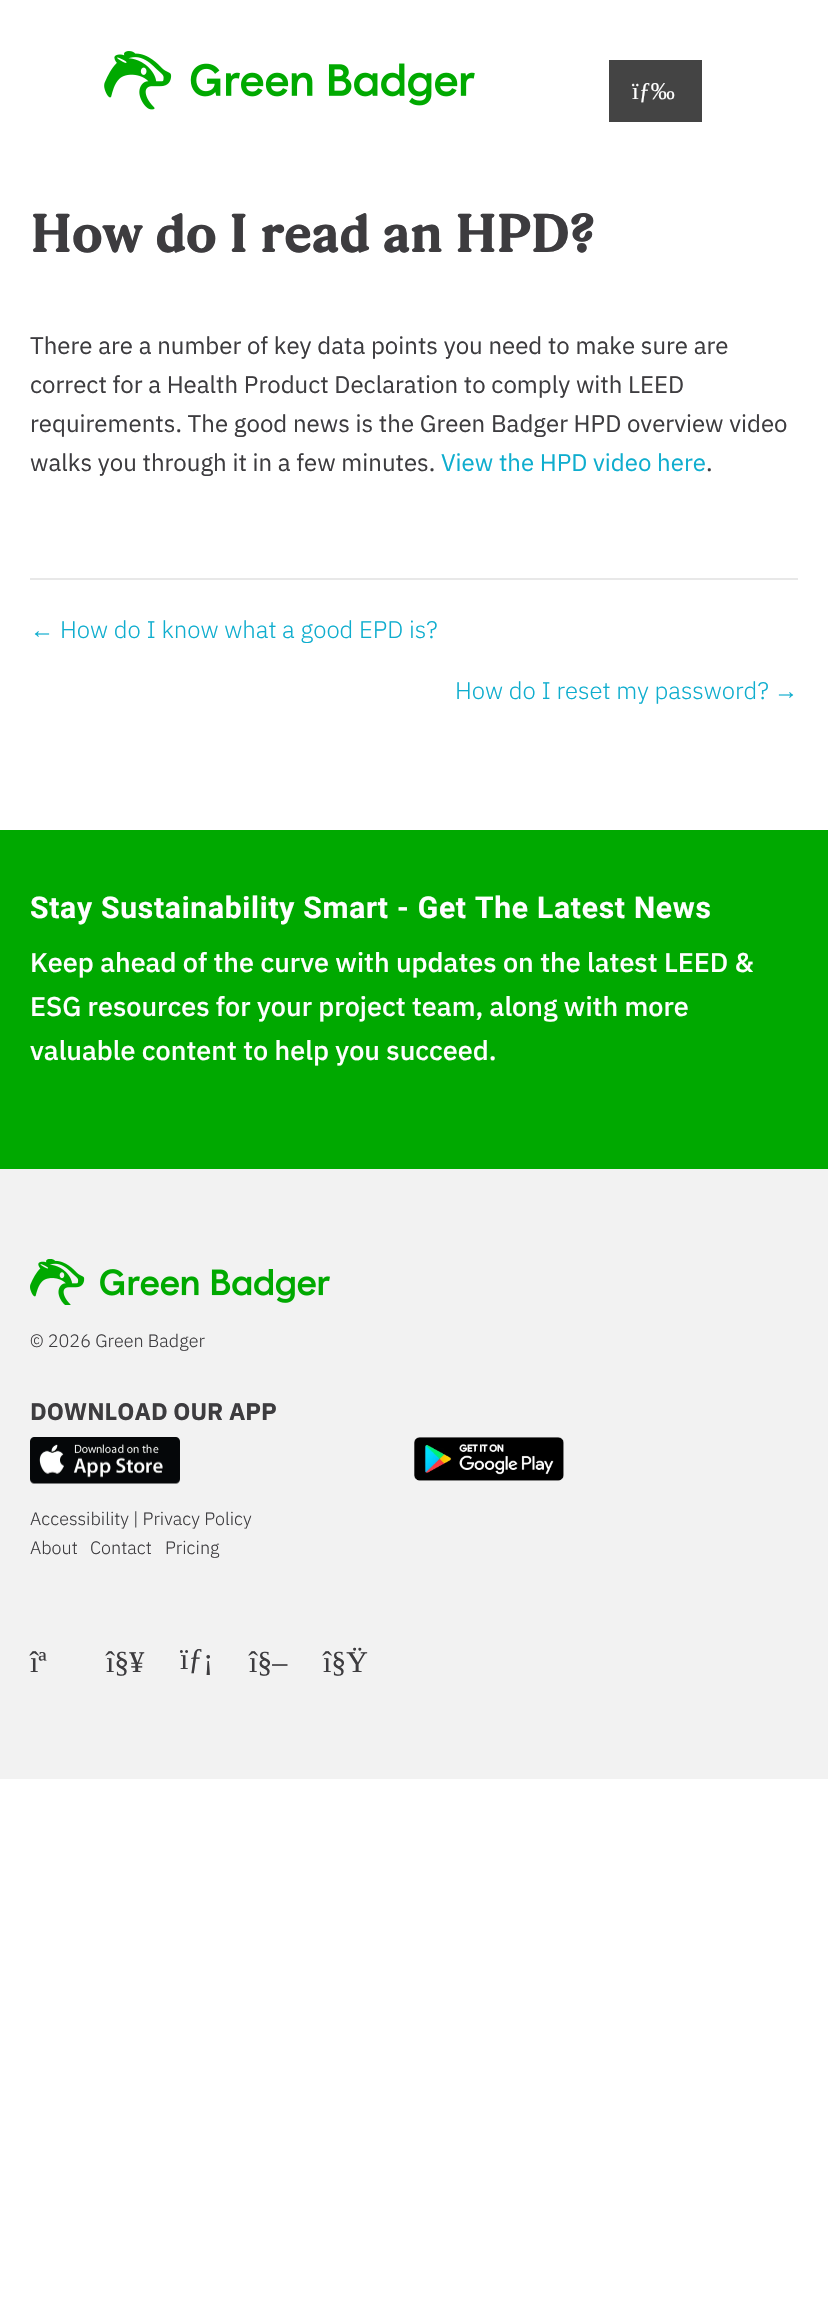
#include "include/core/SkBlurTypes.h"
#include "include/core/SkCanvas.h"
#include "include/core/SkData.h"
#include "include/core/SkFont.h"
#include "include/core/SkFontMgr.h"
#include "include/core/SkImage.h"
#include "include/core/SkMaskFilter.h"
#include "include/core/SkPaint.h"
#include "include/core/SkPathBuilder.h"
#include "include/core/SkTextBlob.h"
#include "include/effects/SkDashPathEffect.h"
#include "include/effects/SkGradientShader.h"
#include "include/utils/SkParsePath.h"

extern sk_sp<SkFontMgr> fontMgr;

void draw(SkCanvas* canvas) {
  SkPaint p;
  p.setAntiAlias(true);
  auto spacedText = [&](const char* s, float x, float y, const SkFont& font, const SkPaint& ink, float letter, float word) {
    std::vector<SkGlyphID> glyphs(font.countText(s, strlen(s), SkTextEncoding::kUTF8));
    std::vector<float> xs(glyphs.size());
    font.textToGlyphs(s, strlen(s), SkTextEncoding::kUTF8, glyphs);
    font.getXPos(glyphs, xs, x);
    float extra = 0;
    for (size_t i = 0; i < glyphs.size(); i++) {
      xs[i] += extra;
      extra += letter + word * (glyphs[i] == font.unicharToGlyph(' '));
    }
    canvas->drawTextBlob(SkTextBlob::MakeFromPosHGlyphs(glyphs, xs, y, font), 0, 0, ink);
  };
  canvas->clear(SK_ColorWHITE);
  canvas->drawImageRect(SkImages::DeferredFromEncodedData(SkData::MakeFromFileName("images/1.png")), SkRect::MakeLTRB(104, 51, 475, 110), SkSamplingOptions());
  p.setColor(SkColorSetRGB(68, 68, 68));
  canvas->drawRect(SkRect::MakeLTRB(609, 60, 702, 122), p);
  p.setColor(SkColorSetRGB(232, 232, 232));
  canvas->drawRect(SkRect::MakeLTRB(30, 578, 798, 580), p);
  p.setColor(SkColorSetRGB(0, 169, 0));
  canvas->drawRect(SkRect::MakeLTRB(0, 830, 828, 1169), p);
  p.setColor(SkColorSetRGB(242, 242, 242));
  canvas->drawRect(SkRect::MakeLTRB(0, 1169, 828, 1779), p);
  canvas->drawImageRect(SkImages::DeferredFromEncodedData(SkData::MakeFromFileName("images/2.png")), SkRect::MakeLTRB(30, 1259, 330, 1305), SkSamplingOptions());
  canvas->drawImageRect(SkImages::DeferredFromEncodedData(SkData::MakeFromFileName("images/3.png")), SkRect::MakeLTRB(30, 1437, 180, 1484), SkSamplingOptions());
  canvas->drawImageRect(SkImages::DeferredFromEncodedData(SkData::MakeFromFileName("images/4.png")), SkRect::MakeLTRB(414, 1437, 564, 1481), SkSamplingOptions());
  SkFont font1(fontMgr->matchFamilyStyle("Liberation Serif", SkFontStyle::Normal()), 24);
  font1.setSubpixel(true);
  p.setColor(SK_ColorWHITE);
  canvas->drawString("ïƒ‰", 632, 99, font1, p);
  SkFont font2(fontMgr->matchFamilyStyle("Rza", SkFontStyle::Bold()), 52.5f);
  font2.setSubpixel(true);
  p.setColor(SkColorSetRGB(61, 60, 63));
  canvas->drawString("How do I read an HPD?", 30, 252, font2, p);
  SkFont font3(fontMgr->matchFamilyStyle("IBM Plex Sans", SkFontStyle::Normal()), 24);
  font3.setSubpixel(true);
  canvas->drawString("There are a number of key data points you need to make sure are", 30, 354, font3, p);
  canvas->drawString("correct for a Health Product Declaration to comply with LEED", 30, 393, font3, p);
  canvas->drawString("requirements. The good news is the Green Badger HPD overview video", 30, 432, font3, p);
  canvas->drawString("walks you through it in a few minutes.", 30, 471, font3, p);
  p.setColor(SkColorSetRGB(14, 173, 206));
  canvas->drawString("View the HPD video here", 441, 471, font3, p);
  p.setColor(SkColorSetRGB(61, 60, 63));
  canvas->drawString(".", 706, 471, font3, p);
  p.setColor(SkColorSetRGB(14, 173, 206));
  canvas->drawString("←", 30, 638, font1, p);
  SkFont font4(fontMgr->matchFamilyStyle("IBM Plex Sans", SkFontStyle(300, SkFontStyle::kNormal_Width, SkFontStyle::kUpright_Slant)), 24);
  font4.setSubpixel(true);
  canvas->drawString("How do I know what a good EPD is?", 60, 638, font4, p);
  canvas->drawString("How do I reset my password?", 455, 699, font4, p);
  canvas->drawString("→", 774, 699, font1, p);
  SkFont font5(fontMgr->matchFamilyStyle("Roboto", SkFontStyle::Bold()), 30);
  font5.setSubpixel(true);
  p.setColor(SK_ColorWHITE);
  spacedText("Stay Sustainability Smart - Get The Latest News", 30, 918, font5, p, 0.75f, 0);
  SkFont font6(fontMgr->matchFamilyStyle("IBM Plex Sans", SkFontStyle(500, SkFontStyle::kNormal_Width, SkFontStyle::kUpright_Slant)), 27);
  font6.setSubpixel(true);
  canvas->drawString("Keep ahead of the curve with updates on the latest LEED &", 30, 972, font6, p);
  canvas->drawString("ESG resources for your project team, along with more", 30, 1016, font6, p);
  canvas->drawString("valuable content to help you succeed.", 30, 1060, font6, p);
  SkFont font7(fontMgr->matchFamilyStyle("IBM Plex Sans", SkFontStyle(300, SkFontStyle::kNormal_Width, SkFontStyle::kUpright_Slant)), 18);
  font7.setSubpixel(true);
  p.setColor(SkColorSetRGB(61, 60, 63));
  canvas->drawString("© 2026 Green Badger", 30, 1347, font7, p);
  SkFont font8(fontMgr->matchFamilyStyle("IBM Plex Sans", SkFontStyle::Bold()), 24);
  font8.setSubpixel(true);
  canvas->drawString("DOWNLOAD OUR APP", 30, 1420, font8, p);
  canvas->drawString("Accessibility | Privacy Policy", 30, 1525, font7, p);
  canvas->drawString("About", 30, 1554, font7, p);
  canvas->drawString("Contact", 90, 1554, font7, p);
  canvas->drawString("Pricing", 165, 1554, font7, p);
  SkFont font9(fontMgr->matchFamilyStyle("Liberation Serif", SkFontStyle::Normal()), 30);
  font9.setSubpixel(true);
  canvas->drawString("îª", 30, 1672, font9, p);
  canvas->drawString("î§¥", 106, 1672, font9, p);
  canvas->drawString("ïƒ¡", 180, 1669, font9, p);
  canvas->drawString("î§–", 249, 1672, font9, p);
  canvas->drawString("î§Ÿ", 323, 1672, font9, p);
}
